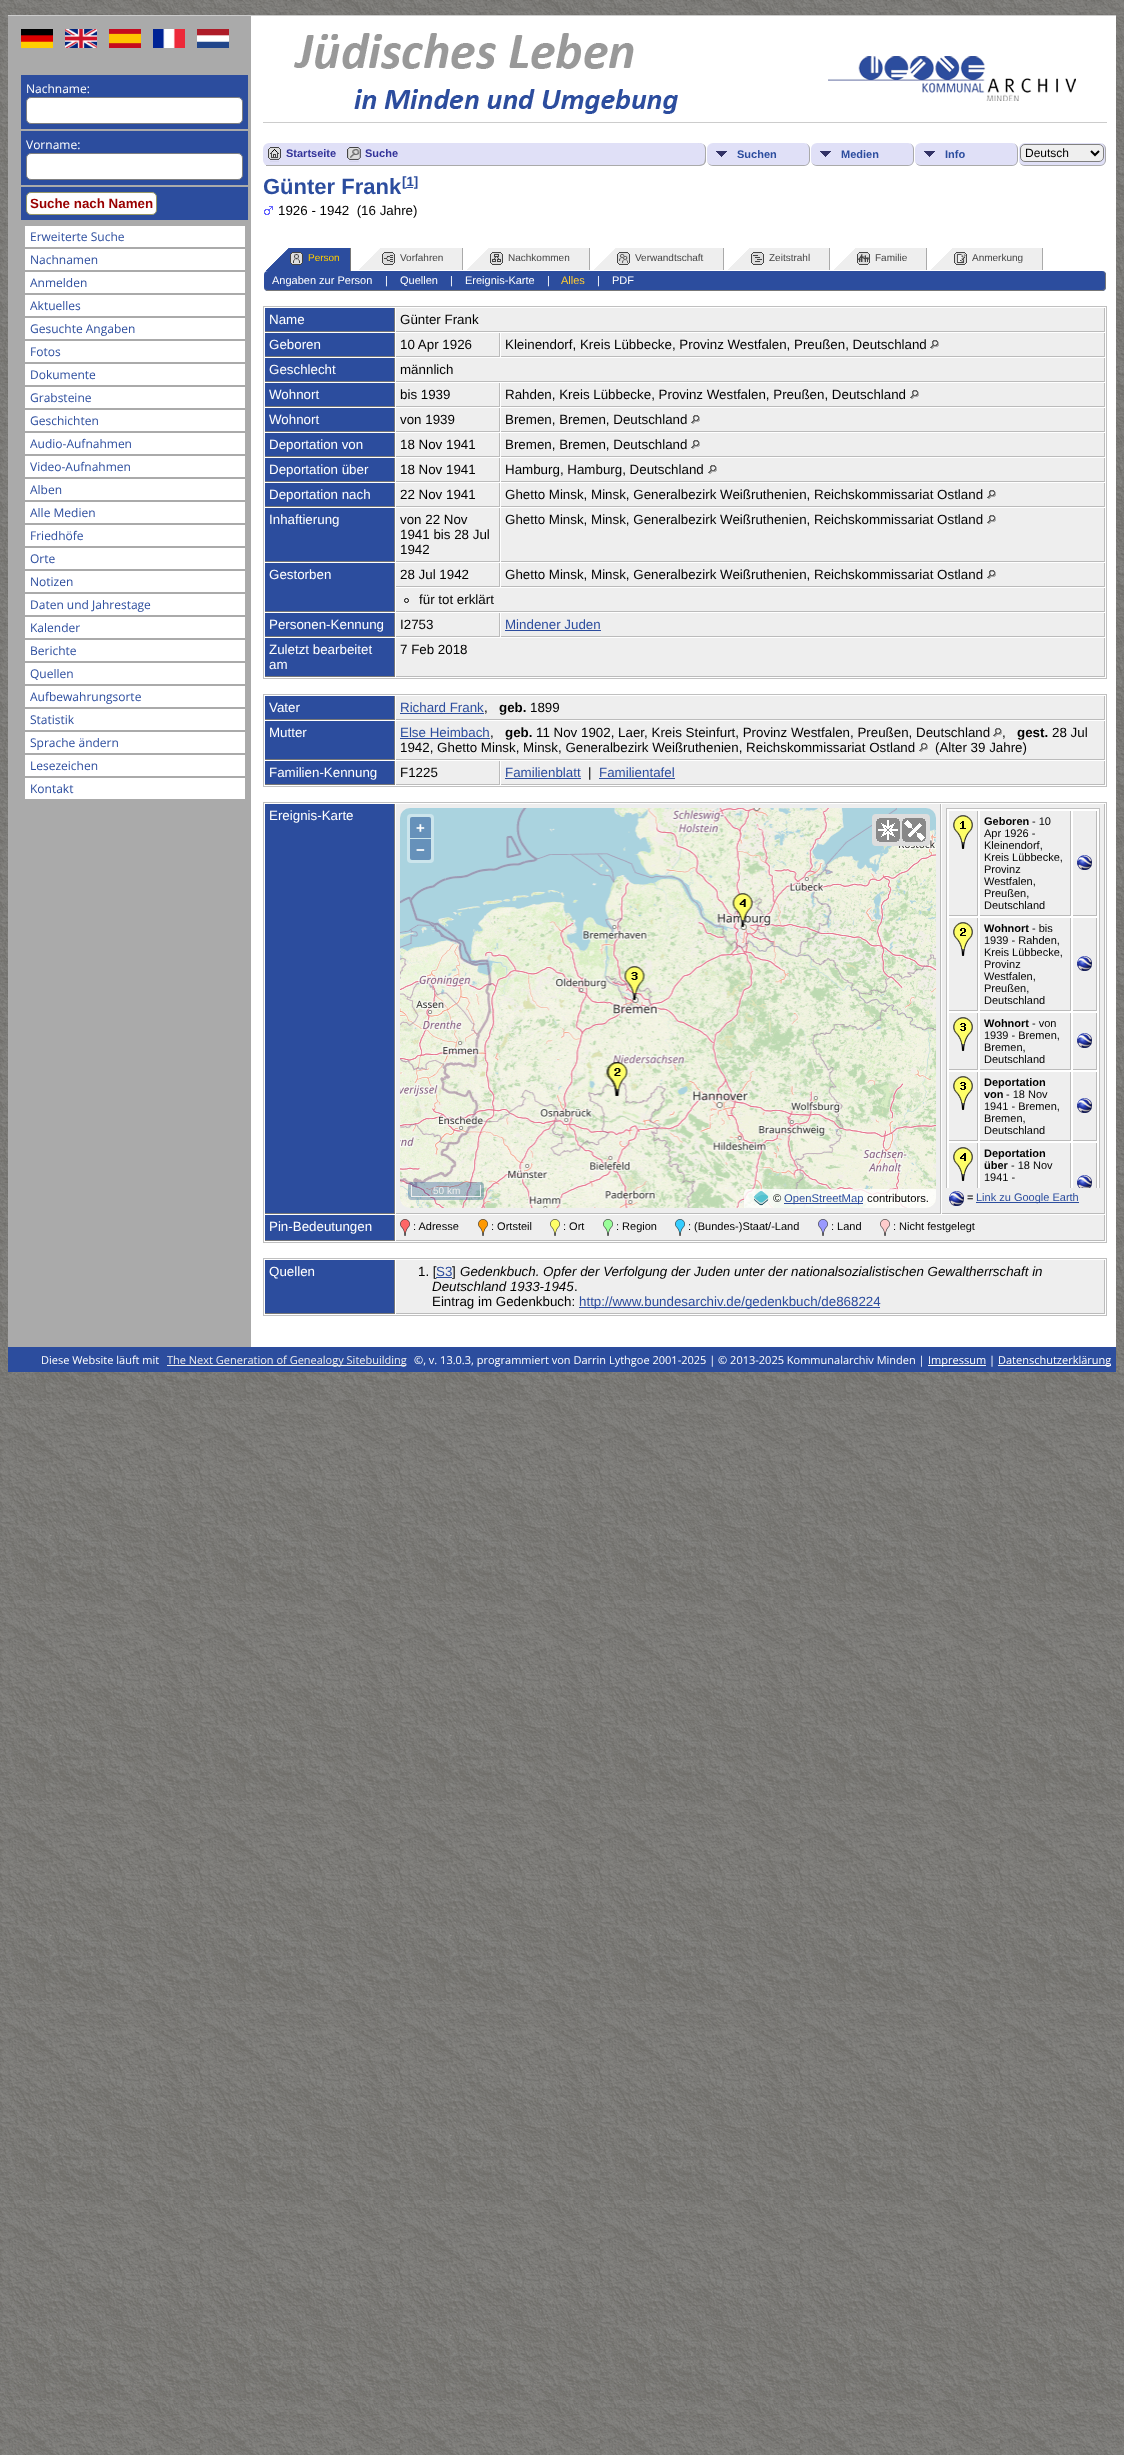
async function draw(canvas) {
  canvas.width = 1124
  canvas.height = 2455
  const ctx = canvas.getContext('2d')
  ctx.miterLimit = 4
  ctx.fontKerning = 'normal'
  async function loadImage(src) {
    const img = new Image()
    img.src = src
    await img.decode()
    return img
  }

  ctx.fillStyle = '#fff'
  ctx.fillRect(0, 0, 1124, 2455)
  ctx.drawImage(await loadImage('image0.png'), 0, 0, 1124, 2455)
  ctx.fillRect(251, 16, 865, 1331)
  ctx.fillStyle = '#ccc'
  ctx.fillRect(8, 15, 1108, 1)
  ctx.fillStyle = '#aaa'
  ctx.fillRect(8, 16, 243, 1331)
  ctx.drawImage(await loadImage('image1.png'), 21, 29, 32, 19)
  ctx.drawImage(await loadImage('image2.png'), 65, 29, 32, 19)
  ctx.drawImage(await loadImage('image3.png'), 109, 29, 32, 19)
  ctx.drawImage(await loadImage('image4.png'), 153, 29, 32, 19)
  ctx.drawImage(await loadImage('image5.png'), 197, 29, 32, 19)
  ctx.fillStyle = '#2c4d9e'
  ctx.fillRect(21, 75, 227, 54)
  ctx.font = '12px Open Sans'
  ctx.fillStyle = '#fff'
  ctx.fillText('Nachname:', 26, 93)
  ctx.beginPath()
  ctx.roundRect(26.5, 97.5, 216, 26, 4.5)
  ctx.fill()
  ctx.strokeStyle = '#808080'
  ctx.stroke()
  ctx.fillStyle = '#2c4d9e'
  ctx.fillRect(21, 131, 227, 54)
  ctx.fillStyle = '#fff'
  ctx.fillText('Vorname:', 26, 149)
  ctx.beginPath()
  ctx.roundRect(26.5, 153.5, 216, 26, 4.5)
  ctx.fill()
  ctx.stroke()
  ctx.fillStyle = '#2c4d9e'
  ctx.fillRect(21, 187, 227, 33)
  ctx.fillStyle = '#fff'
  ctx.beginPath()
  ctx.roundRect(26.5, 192.5, 130, 22, 4.5)
  ctx.fill()
  ctx.strokeStyle = '#996'
  ctx.stroke()
  ctx.font = 'bold 13.35px Liberation Sans'
  ctx.fillStyle = '#900'
  ctx.fillText('Suche nach Namen', 30, 208)
  ctx.fillStyle = '#fff'
  ctx.fillRect(25, 226, 220, 21)
  ctx.font = '12px Open Sans'
  ctx.fillStyle = '#2c4d9e'
  ctx.fillText('Erweiterte Suche', 30, 241)
  ctx.fillStyle = '#fff'
  ctx.fillRect(25, 249, 220, 21)
  ctx.fillStyle = '#2c4d9e'
  ctx.fillText('Nachnamen', 30, 264)
  ctx.fillStyle = '#fff'
  ctx.fillRect(25, 272, 220, 21)
  ctx.fillStyle = '#2c4d9e'
  ctx.fillText('Anmelden', 30, 287)
  ctx.fillStyle = '#fff'
  ctx.fillRect(25, 295, 220, 21)
  ctx.fillStyle = '#2c4d9e'
  ctx.fillText('Aktuelles', 30, 310)
  ctx.fillStyle = '#fff'
  ctx.fillRect(25, 318, 220, 21)
  ctx.fillStyle = '#2c4d9e'
  ctx.fillText('Gesuchte Angaben', 30, 333)
  ctx.fillStyle = '#fff'
  ctx.fillRect(25, 341, 220, 21)
  ctx.fillStyle = '#2c4d9e'
  ctx.fillText('Fotos', 30, 356)
  ctx.fillStyle = '#fff'
  ctx.fillRect(25, 364, 220, 21)
  ctx.fillStyle = '#2c4d9e'
  ctx.fillText('Dokumente', 30, 379)
  ctx.fillStyle = '#fff'
  ctx.fillRect(25, 387, 220, 21)
  ctx.fillStyle = '#2c4d9e'
  ctx.fillText('Grabsteine', 30, 402)
  ctx.fillStyle = '#fff'
  ctx.fillRect(25, 410, 220, 21)
  ctx.fillStyle = '#2c4d9e'
  ctx.fillText('Geschichten', 30, 425)
  ctx.fillStyle = '#fff'
  ctx.fillRect(25, 433, 220, 21)
  ctx.fillStyle = '#2c4d9e'
  ctx.fillText('Audio-Aufnahmen', 30, 448)
  ctx.fillStyle = '#fff'
  ctx.fillRect(25, 456, 220, 21)
  ctx.fillStyle = '#2c4d9e'
  ctx.fillText('Video-Aufnahmen', 30, 471)
  ctx.fillStyle = '#fff'
  ctx.fillRect(25, 479, 220, 21)
  ctx.fillStyle = '#2c4d9e'
  ctx.fillText('Alben', 30, 494)
  ctx.fillStyle = '#fff'
  ctx.fillRect(25, 502, 220, 21)
  ctx.fillStyle = '#2c4d9e'
  ctx.fillText('Alle Medien', 30, 517)
  ctx.fillStyle = '#fff'
  ctx.fillRect(25, 525, 220, 21)
  ctx.fillStyle = '#2c4d9e'
  ctx.fillText('Friedhöfe', 30, 540)
  ctx.fillStyle = '#fff'
  ctx.fillRect(25, 548, 220, 21)
  ctx.fillStyle = '#2c4d9e'
  ctx.fillText('Orte', 30, 563)
  ctx.fillStyle = '#fff'
  ctx.fillRect(25, 571, 220, 21)
  ctx.fillStyle = '#2c4d9e'
  ctx.fillText('Notizen', 30, 586)
  ctx.fillStyle = '#fff'
  ctx.fillRect(25, 594, 220, 21)
  ctx.fillStyle = '#2c4d9e'
  ctx.fillText('Daten und Jahrestage', 30, 609)
  ctx.fillStyle = '#fff'
  ctx.fillRect(25, 617, 220, 21)
  ctx.fillStyle = '#2c4d9e'
  ctx.fillText('Kalender', 30, 632)
  ctx.fillStyle = '#fff'
  ctx.fillRect(25, 640, 220, 21)
  ctx.fillStyle = '#2c4d9e'
  ctx.fillText('Berichte', 30, 655)
  ctx.fillStyle = '#fff'
  ctx.fillRect(25, 663, 220, 21)
  ctx.fillStyle = '#2c4d9e'
  ctx.fillText('Quellen', 30, 678)
  ctx.fillStyle = '#fff'
  ctx.fillRect(25, 686, 220, 21)
  ctx.fillStyle = '#2c4d9e'
  ctx.fillText('Aufbewahrungsorte', 30, 701)
  ctx.fillStyle = '#fff'
  ctx.fillRect(25, 709, 220, 21)
  ctx.fillStyle = '#2c4d9e'
  ctx.fillText('Statistik', 30, 724)
  ctx.fillStyle = '#fff'
  ctx.fillRect(25, 732, 220, 21)
  ctx.fillStyle = '#2c4d9e'
  ctx.fillText('Sprache ändern', 30, 747)
  ctx.fillStyle = '#fff'
  ctx.fillRect(25, 755, 220, 21)
  ctx.fillStyle = '#2c4d9e'
  ctx.fillText('Lesezeichen', 30, 770)
  ctx.fillStyle = '#fff'
  ctx.fillRect(25, 778, 220, 21)
  ctx.fillStyle = '#2c4d9e'
  ctx.fillText('Kontakt', 30, 793)
  ctx.drawImage(await loadImage('image6.png'), 294, 33, 384, 81)
  ctx.drawImage(await loadImage('image7.png'), 828, 56, 248, 45)
  ctx.fillStyle = '#ccc'
  ctx.fillRect(263, 122, 844, 1)
  ctx.fillStyle = '#e0e0f7'
  ctx.beginPath()
  ctx.roundRect(263, 143, 844, 23, 6)
  ctx.fill()
  ctx.fillStyle = '#aaa'
  ctx.fillRect(266, 165, 429, 1)
  ctx.drawImage(await loadImage('image8.png'), 268, 147, 13, 15)
  ctx.font = 'bold 11px Liberation Sans'
  ctx.fillStyle = '#339'
  ctx.fillText('Startseite', 286, 157)
  ctx.drawImage(await loadImage('image9.png'), 347, 147, 14, 15)
  ctx.fillText('Suche', 365, 157)
  ctx.fillStyle = '#fff'
  ctx.fillRect(700, 143, 407, 23)
  ctx.fillStyle = '#e0e0f7'
  ctx.beginPath()
  ctx.roundRect(695, 143, 11, 23, [0, 6, 6, 0])
  ctx.fill()
  ctx.fillStyle = '#aaa'
  ctx.beginPath()
  ctx.moveTo(695, 143)
  ctx.bezierCurveTo(699, 143, 705, 142.5, 706, 148)
  ctx.lineTo(706, 161)
  ctx.bezierCurveTo(705, 166.5, 699, 166, 695, 166)
  ctx.closePath()
  ctx.moveTo(695, 143)
  ctx.lineTo(701, 143)
  ctx.bezierCurveTo(706, 144.5, 705, 151, 705, 154.5)
  ctx.bezierCurveTo(705, 164.5, 704.5, 165, 695, 165)
  ctx.closePath()
  ctx.fill('evenodd')
  ctx.fillStyle = '#e0e0f7'
  ctx.beginPath()
  ctx.roundRect(707, 143, 103, 23, 6)
  ctx.fill()
  ctx.drawImage(await loadImage('image10.png'), 716, 151, 11, 6)
  ctx.fillStyle = '#aaa'
  ctx.beginPath()
  ctx.moveTo(713, 143)
  ctx.lineTo(804, 143)
  ctx.bezierCurveTo(807, 143, 810, 146, 810, 149)
  ctx.lineTo(810, 160)
  ctx.bezierCurveTo(810, 163, 807, 166, 804, 166)
  ctx.lineTo(713, 166)
  ctx.bezierCurveTo(710, 166, 707, 163, 707, 160)
  ctx.lineTo(707, 149)
  ctx.bezierCurveTo(707, 146, 710, 143, 713, 143)
  ctx.closePath()
  ctx.moveTo(713, 143)
  ctx.lineTo(804, 143)
  ctx.bezierCurveTo(807, 143, 809, 146, 809, 149)
  ctx.lineTo(809, 160)
  ctx.bezierCurveTo(809, 163, 807, 165, 804, 165)
  ctx.lineTo(713, 165)
  ctx.bezierCurveTo(710, 165, 707, 163, 707, 160)
  ctx.lineTo(707, 149)
  ctx.bezierCurveTo(707, 146, 710, 143, 713, 143)
  ctx.closePath()
  ctx.fill('evenodd')
  ctx.fillStyle = '#2c4d9e'
  ctx.fillText('Suchen', 737, 158)
  ctx.fillStyle = '#e0e0f7'
  ctx.beginPath()
  ctx.roundRect(811, 143, 103, 23, 6)
  ctx.fill()
  ctx.drawImage(await loadImage('image10.png'), 820, 151, 11, 6)
  ctx.fillStyle = '#aaa'
  ctx.beginPath()
  ctx.moveTo(817, 143)
  ctx.lineTo(908, 143)
  ctx.bezierCurveTo(911, 143, 914, 146, 914, 149)
  ctx.lineTo(914, 160)
  ctx.bezierCurveTo(914, 163, 911, 166, 908, 166)
  ctx.lineTo(817, 166)
  ctx.bezierCurveTo(814, 166, 811, 163, 811, 160)
  ctx.lineTo(811, 149)
  ctx.bezierCurveTo(811, 146, 814, 143, 817, 143)
  ctx.closePath()
  ctx.moveTo(817, 143)
  ctx.lineTo(908, 143)
  ctx.bezierCurveTo(911, 143, 913, 146, 913, 149)
  ctx.lineTo(913, 160)
  ctx.bezierCurveTo(913, 163, 911, 165, 908, 165)
  ctx.lineTo(817, 165)
  ctx.bezierCurveTo(814, 165, 811, 163, 811, 160)
  ctx.lineTo(811, 149)
  ctx.bezierCurveTo(811, 146, 814, 143, 817, 143)
  ctx.closePath()
  ctx.fill('evenodd')
  ctx.fillStyle = '#2c4d9e'
  ctx.fillText('Medien', 841, 158)
  ctx.fillStyle = '#e0e0f7'
  ctx.beginPath()
  ctx.roundRect(915, 143, 103, 23, 6)
  ctx.fill()
  ctx.drawImage(await loadImage('image10.png'), 924, 151, 11, 6)
  ctx.fillStyle = '#aaa'
  ctx.beginPath()
  ctx.moveTo(921, 143)
  ctx.lineTo(1012, 143)
  ctx.bezierCurveTo(1015, 143, 1018, 146, 1018, 149)
  ctx.lineTo(1018, 160)
  ctx.bezierCurveTo(1018, 163, 1015, 166, 1012, 166)
  ctx.lineTo(921, 166)
  ctx.bezierCurveTo(918, 166, 915, 163, 915, 160)
  ctx.lineTo(915, 149)
  ctx.bezierCurveTo(915, 146, 918, 143, 921, 143)
  ctx.closePath()
  ctx.moveTo(921, 143)
  ctx.lineTo(1012, 143)
  ctx.bezierCurveTo(1015, 143, 1017, 146, 1017, 149)
  ctx.lineTo(1017, 160)
  ctx.bezierCurveTo(1017, 163, 1015, 165, 1012, 165)
  ctx.lineTo(921, 165)
  ctx.bezierCurveTo(918, 165, 915, 163, 915, 160)
  ctx.lineTo(915, 149)
  ctx.bezierCurveTo(915, 146, 918, 143, 921, 143)
  ctx.closePath()
  ctx.fill('evenodd')
  ctx.fillStyle = '#2c4d9e'
  ctx.fillText('Info', 945, 158)
  ctx.fillStyle = '#e0e0f7'
  ctx.beginPath()
  ctx.roundRect(1019, 143, 87, 23, 6)
  ctx.fill()
  ctx.fillStyle = '#aaa'
  ctx.beginPath()
  ctx.moveTo(1025, 143)
  ctx.lineTo(1100, 143)
  ctx.bezierCurveTo(1103, 143, 1106, 146, 1106, 149)
  ctx.lineTo(1106, 160)
  ctx.bezierCurveTo(1106, 163, 1103, 166, 1100, 166)
  ctx.lineTo(1025, 166)
  ctx.bezierCurveTo(1022, 166, 1019, 163, 1019, 160)
  ctx.lineTo(1019, 149)
  ctx.bezierCurveTo(1019, 146, 1022, 143, 1025, 143)
  ctx.closePath()
  ctx.moveTo(1025, 143)
  ctx.lineTo(1100, 143)
  ctx.bezierCurveTo(1103, 143, 1105, 146, 1105, 149)
  ctx.lineTo(1105, 160)
  ctx.bezierCurveTo(1105, 163, 1103, 165, 1100, 165)
  ctx.lineTo(1025, 165)
  ctx.bezierCurveTo(1022, 165, 1019, 163, 1019, 160)
  ctx.lineTo(1019, 149)
  ctx.bezierCurveTo(1019, 146, 1022, 143, 1025, 143)
  ctx.closePath()
  ctx.fill('evenodd')
  ctx.fillStyle = '#efefef'
  ctx.beginPath()
  ctx.roundRect(1020.5, 144.5, 83, 17, 4.5)
  ctx.fill()
  ctx.strokeStyle = '#808080'
  ctx.stroke()
  ctx.beginPath()
  ctx.moveTo(1091, 151)
  ctx.lineTo(1095, 155)
  ctx.lineTo(1099, 151)
  ctx.strokeStyle = '#000'
  ctx.lineWidth = 2
  ctx.stroke()
  ctx.font = '12px Liberation Sans'
  ctx.fillStyle = '#000'
  ctx.fillText('Deutsch', 1025, 157)
  ctx.font = 'bold 22px Liberation Sans'
  ctx.fillStyle = '#2c4d9e'
  ctx.fillText('Günter Frank', 263, 194)
  ctx.font = 'bold 13.35px Liberation Sans'
  ctx.fillText('[1]', 402, 186)
  ctx.fillRect(406, 187, 7, 1)
  ctx.drawImage(await loadImage('image11.png'), 264, 206, 9, 9)
  ctx.font = '13.35px Liberation Sans'
  ctx.fillStyle = '#000'
  ctx.fillText('1926 - 1942  (16 Jahre)', 278, 215)
  ctx.drawImage(await loadImage('image12.png'), 266, 248, 84, 23)
  ctx.fillStyle = '#777'
  ctx.fillRect(350, 248, 1, 23)
  ctx.drawImage(await loadImage('image13.png'), 290, 252, 13, 13)
  ctx.font = '10px Liberation Sans'
  ctx.fillStyle = '#fc0'
  ctx.fillText('Person', 308, 261)
  ctx.drawImage(await loadImage('image14.png'), 359, 248, 103, 22)
  ctx.fillStyle = '#aaa'
  ctx.fillRect(462, 248, 1, 22)
  ctx.drawImage(await loadImage('image15.png'), 382, 252, 13, 13)
  ctx.fillStyle = '#444'
  ctx.fillText('Vorfahren', 400, 261)
  ctx.drawImage(await loadImage('image16.png'), 467, 248, 122, 22)
  ctx.fillStyle = '#aaa'
  ctx.fillRect(589, 248, 1, 22)
  ctx.drawImage(await loadImage('image17.png'), 490, 252, 13, 13)
  ctx.fillStyle = '#444'
  ctx.fillText('Nachkommen', 508, 261)
  ctx.drawImage(await loadImage('image18.png'), 594, 248, 129, 22)
  ctx.fillStyle = '#aaa'
  ctx.fillRect(723, 248, 1, 22)
  ctx.drawImage(await loadImage('image19.png'), 617, 252, 13, 13)
  ctx.fillStyle = '#444'
  ctx.fillText('Verwandtschaft', 635, 261)
  ctx.drawImage(await loadImage('image20.png'), 728, 248, 101, 22)
  ctx.fillStyle = '#aaa'
  ctx.fillRect(829, 248, 1, 22)
  ctx.drawImage(await loadImage('image21.png'), 751, 252, 13, 13)
  ctx.fillStyle = '#444'
  ctx.fillText('Zeitstrahl', 769, 261)
  ctx.drawImage(await loadImage('image22.png'), 834, 248, 92, 22)
  ctx.fillStyle = '#aaa'
  ctx.fillRect(926, 248, 1, 22)
  ctx.drawImage(await loadImage('image23.png'), 857, 252, 13, 13)
  ctx.fillStyle = '#444'
  ctx.fillText('Familie', 875, 261)
  ctx.drawImage(await loadImage('image24.png'), 931, 248, 111, 22)
  ctx.fillStyle = '#aaa'
  ctx.fillRect(1042, 248, 1, 22)
  ctx.drawImage(await loadImage('image25.png'), 954, 252, 13, 13)
  ctx.fillStyle = '#444'
  ctx.fillText('Anmerkung', 972, 261)
  ctx.fillStyle = '#2c4d9e'
  ctx.beginPath()
  ctx.roundRect(264, 271, 842, 20, 4)
  ctx.fill()
  ctx.fillStyle = '#777'
  ctx.beginPath()
  ctx.moveTo(268, 271)
  ctx.lineTo(1102, 271)
  ctx.bezierCurveTo(1104, 271, 1106, 273, 1106, 275)
  ctx.lineTo(1106, 287)
  ctx.bezierCurveTo(1106, 289, 1104, 291, 1102, 291)
  ctx.lineTo(268, 291)
  ctx.bezierCurveTo(266, 291, 264, 289, 264, 287)
  ctx.lineTo(264, 275)
  ctx.bezierCurveTo(264, 273, 266, 271, 268, 271)
  ctx.closePath()
  ctx.moveTo(268, 271)
  ctx.lineTo(1102, 271)
  ctx.bezierCurveTo(1104, 271, 1105, 273, 1105, 275)
  ctx.lineTo(1105, 287)
  ctx.bezierCurveTo(1105, 289, 1104, 290, 1102, 290)
  ctx.lineTo(268, 290)
  ctx.bezierCurveTo(266, 290, 264, 289, 264, 287)
  ctx.lineTo(264, 275)
  ctx.bezierCurveTo(264, 273, 266, 271, 268, 271)
  ctx.closePath()
  ctx.fill('evenodd')
  ctx.font = '11px Liberation Sans'
  ctx.fillStyle = '#fff'
  ctx.fillText('Angaben zur Person', 272, 284)
  ctx.fillText('|', 385, 284)
  ctx.fillText('Quellen', 400, 284)
  ctx.fillText('|', 450, 284)
  ctx.fillText('Ereignis-Karte', 465, 284)
  ctx.fillText('|', 547, 284)
  ctx.fillStyle = '#fc3'
  ctx.fillText('Alles', 561, 284)
  ctx.fillStyle = '#fff'
  ctx.fillText('|', 597, 284)
  ctx.fillText('PDF', 612, 284)
  ctx.strokeStyle = '#c0c0c0'
  ctx.lineWidth = 1
  ctx.strokeRect(263.5, 306.5, 843, 372)
  ctx.fillStyle = '#2c4d9e'
  ctx.fillRect(265, 308, 129, 23)
  ctx.fillStyle = '#777'
  ctx.fillRect(394, 308, 1, 24)
  ctx.fillRect(265, 331, 130, 1)
  ctx.font = '13.35px Liberation Sans'
  ctx.fillStyle = '#fff'
  ctx.fillText('Name', 269, 324)
  ctx.fillStyle = '#eee'
  ctx.fillRect(396, 308, 708, 23)
  ctx.fillStyle = '#bbb'
  ctx.fillRect(1104, 308, 1, 24)
  ctx.fillRect(396, 331, 709, 1)
  ctx.fillStyle = '#000'
  ctx.fillText('Günter Frank', 400, 324)
  ctx.fillStyle = '#2c4d9e'
  ctx.fillRect(265, 333, 129, 23)
  ctx.fillStyle = '#777'
  ctx.fillRect(394, 333, 1, 24)
  ctx.fillRect(265, 356, 130, 1)
  ctx.fillStyle = '#fff'
  ctx.fillText('Geboren', 269, 349)
  ctx.fillStyle = '#eee'
  ctx.fillRect(396, 333, 103, 23)
  ctx.fillStyle = '#bbb'
  ctx.fillRect(499, 333, 1, 24)
  ctx.fillRect(396, 356, 104, 1)
  ctx.fillStyle = '#000'
  ctx.fillText('10 Apr 1926', 400, 349)
  ctx.fillStyle = '#eee'
  ctx.fillRect(501, 333, 603, 23)
  ctx.fillStyle = '#bbb'
  ctx.fillRect(1104, 333, 1, 24)
  ctx.fillRect(501, 356, 604, 1)
  ctx.fillStyle = '#000'
  ctx.fillText('Kleinendorf, Kreis Lübbecke, Provinz Westfalen, Preußen, Deutschland', 505, 349)
  ctx.drawImage(await loadImage('image26.png'), 930, 340, 9, 9)
  ctx.fillStyle = '#2c4d9e'
  ctx.fillRect(265, 358, 129, 23)
  ctx.fillStyle = '#777'
  ctx.fillRect(394, 358, 1, 24)
  ctx.fillRect(265, 381, 130, 1)
  ctx.fillStyle = '#fff'
  ctx.fillText('Geschlecht', 269, 374)
  ctx.fillStyle = '#eee'
  ctx.fillRect(396, 358, 708, 23)
  ctx.fillStyle = '#bbb'
  ctx.fillRect(1104, 358, 1, 24)
  ctx.fillRect(396, 381, 709, 1)
  ctx.fillStyle = '#000'
  ctx.fillText('männlich', 400, 374)
  ctx.fillStyle = '#2c4d9e'
  ctx.fillRect(265, 383, 129, 23)
  ctx.fillStyle = '#777'
  ctx.fillRect(394, 383, 1, 24)
  ctx.fillRect(265, 406, 130, 1)
  ctx.fillStyle = '#fff'
  ctx.fillText('Wohnort', 269, 399)
  ctx.fillStyle = '#eee'
  ctx.fillRect(396, 383, 103, 23)
  ctx.fillStyle = '#bbb'
  ctx.fillRect(499, 383, 1, 24)
  ctx.fillRect(396, 406, 104, 1)
  ctx.fillStyle = '#000'
  ctx.fillText('bis 1939', 400, 399)
  ctx.fillStyle = '#eee'
  ctx.fillRect(501, 383, 603, 23)
  ctx.fillStyle = '#bbb'
  ctx.fillRect(1104, 383, 1, 24)
  ctx.fillRect(501, 406, 604, 1)
  ctx.fillStyle = '#000'
  ctx.fillText('Rahden, Kreis Lübbecke, Provinz Westfalen, Preußen, Deutschland', 505, 399)
  ctx.drawImage(await loadImage('image26.png'), 910, 390, 9, 9)
  ctx.fillStyle = '#2c4d9e'
  ctx.fillRect(265, 408, 129, 23)
  ctx.fillStyle = '#777'
  ctx.fillRect(394, 408, 1, 24)
  ctx.fillRect(265, 431, 130, 1)
  ctx.fillStyle = '#fff'
  ctx.fillText('Wohnort', 269, 424)
  ctx.fillStyle = '#eee'
  ctx.fillRect(396, 408, 103, 23)
  ctx.fillStyle = '#bbb'
  ctx.fillRect(499, 408, 1, 24)
  ctx.fillRect(396, 431, 104, 1)
  ctx.fillStyle = '#000'
  ctx.fillText('von 1939', 400, 424)
  ctx.fillStyle = '#eee'
  ctx.fillRect(501, 408, 603, 23)
  ctx.fillStyle = '#bbb'
  ctx.fillRect(1104, 408, 1, 24)
  ctx.fillRect(501, 431, 604, 1)
  ctx.fillStyle = '#000'
  ctx.fillText('Bremen, Bremen, Deutschland', 505, 424)
  ctx.drawImage(await loadImage('image26.png'), 691, 415, 9, 9)
  ctx.fillStyle = '#2c4d9e'
  ctx.fillRect(265, 433, 129, 23)
  ctx.fillStyle = '#777'
  ctx.fillRect(394, 433, 1, 24)
  ctx.fillRect(265, 456, 130, 1)
  ctx.fillStyle = '#fff'
  ctx.fillText('Deportation von', 269, 449)
  ctx.fillStyle = '#eee'
  ctx.fillRect(396, 433, 103, 23)
  ctx.fillStyle = '#bbb'
  ctx.fillRect(499, 433, 1, 24)
  ctx.fillRect(396, 456, 104, 1)
  ctx.fillStyle = '#000'
  ctx.fillText('18 Nov 1941', 400, 449)
  ctx.fillStyle = '#eee'
  ctx.fillRect(501, 433, 603, 23)
  ctx.fillStyle = '#bbb'
  ctx.fillRect(1104, 433, 1, 24)
  ctx.fillRect(501, 456, 604, 1)
  ctx.fillStyle = '#000'
  ctx.fillText('Bremen, Bremen, Deutschland', 505, 449)
  ctx.drawImage(await loadImage('image26.png'), 691, 440, 9, 9)
  ctx.fillStyle = '#2c4d9e'
  ctx.fillRect(265, 458, 129, 23)
  ctx.fillStyle = '#777'
  ctx.fillRect(394, 458, 1, 24)
  ctx.fillRect(265, 481, 130, 1)
  ctx.fillStyle = '#fff'
  ctx.fillText('Deportation über', 269, 474)
  ctx.fillStyle = '#eee'
  ctx.fillRect(396, 458, 103, 23)
  ctx.fillStyle = '#bbb'
  ctx.fillRect(499, 458, 1, 24)
  ctx.fillRect(396, 481, 104, 1)
  ctx.fillStyle = '#000'
  ctx.fillText('18 Nov 1941', 400, 474)
  ctx.fillStyle = '#eee'
  ctx.fillRect(501, 458, 603, 23)
  ctx.fillStyle = '#bbb'
  ctx.fillRect(1104, 458, 1, 24)
  ctx.fillRect(501, 481, 604, 1)
  ctx.fillStyle = '#000'
  ctx.fillText('Hamburg, Hamburg, Deutschland', 505, 474)
  ctx.drawImage(await loadImage('image26.png'), 708, 465, 9, 9)
  ctx.fillStyle = '#2c4d9e'
  ctx.fillRect(265, 483, 129, 23)
  ctx.fillStyle = '#777'
  ctx.fillRect(394, 483, 1, 24)
  ctx.fillRect(265, 506, 130, 1)
  ctx.fillStyle = '#fff'
  ctx.fillText('Deportation nach', 269, 499)
  ctx.fillStyle = '#eee'
  ctx.fillRect(396, 483, 103, 23)
  ctx.fillStyle = '#bbb'
  ctx.fillRect(499, 483, 1, 24)
  ctx.fillRect(396, 506, 104, 1)
  ctx.fillStyle = '#000'
  ctx.fillText('22 Nov 1941', 400, 499)
  ctx.fillStyle = '#eee'
  ctx.fillRect(501, 483, 603, 23)
  ctx.fillStyle = '#bbb'
  ctx.fillRect(1104, 483, 1, 24)
  ctx.fillRect(501, 506, 604, 1)
  ctx.fillStyle = '#000'
  ctx.fillText('Ghetto Minsk, Minsk, Generalbezirk Weißruthenien, Reichskommissariat Ostland', 505, 499)
  ctx.drawImage(await loadImage('image26.png'), 987, 490, 9, 9)
  ctx.fillStyle = '#2c4d9e'
  ctx.fillRect(265, 508, 129, 53)
  ctx.fillStyle = '#777'
  ctx.fillRect(394, 508, 1, 54)
  ctx.fillRect(265, 561, 130, 1)
  ctx.fillStyle = '#fff'
  ctx.fillText('Inhaftierung', 269, 524)
  ctx.fillStyle = '#eee'
  ctx.fillRect(396, 508, 103, 53)
  ctx.fillStyle = '#bbb'
  ctx.fillRect(499, 508, 1, 54)
  ctx.fillRect(396, 561, 104, 1)
  ctx.fillStyle = '#000'
  ctx.fillText('von 22 Nov', 400, 524)
  ctx.fillText('1941 bis 28 Jul', 400, 539)
  ctx.fillText('1942', 400, 554)
  ctx.fillStyle = '#eee'
  ctx.fillRect(501, 508, 603, 53)
  ctx.fillStyle = '#bbb'
  ctx.fillRect(1104, 508, 1, 54)
  ctx.fillRect(501, 561, 604, 1)
  ctx.fillStyle = '#000'
  ctx.fillText('Ghetto Minsk, Minsk, Generalbezirk Weißruthenien, Reichskommissariat Ostland', 505, 524)
  ctx.drawImage(await loadImage('image26.png'), 987, 515, 9, 9)
  ctx.fillStyle = '#2c4d9e'
  ctx.fillRect(265, 563, 129, 48)
  ctx.fillStyle = '#777'
  ctx.fillRect(394, 563, 1, 49)
  ctx.fillRect(265, 611, 130, 1)
  ctx.fillStyle = '#fff'
  ctx.fillText('Gestorben', 269, 579)
  ctx.fillStyle = '#eee'
  ctx.fillRect(396, 563, 103, 23)
  ctx.fillStyle = '#bbb'
  ctx.fillRect(499, 563, 1, 24)
  ctx.fillRect(396, 586, 104, 1)
  ctx.fillStyle = '#000'
  ctx.fillText('28 Jul 1942', 400, 579)
  ctx.fillStyle = '#eee'
  ctx.fillRect(501, 563, 603, 23)
  ctx.fillStyle = '#bbb'
  ctx.fillRect(1104, 563, 1, 24)
  ctx.fillRect(501, 586, 604, 1)
  ctx.fillStyle = '#000'
  ctx.fillText('Ghetto Minsk, Minsk, Generalbezirk Weißruthenien, Reichskommissariat Ostland', 505, 579)
  ctx.drawImage(await loadImage('image26.png'), 987, 570, 9, 9)
  ctx.fillStyle = '#eee'
  ctx.fillRect(396, 588, 708, 23)
  ctx.fillStyle = '#bbb'
  ctx.fillRect(1104, 588, 1, 24)
  ctx.fillRect(396, 611, 709, 1)
  ctx.beginPath()
  ctx.arc(406.5, 600.5, 2, 0, 2 * Math.PI)
  ctx.strokeStyle = '#000'
  ctx.stroke()
  ctx.fillStyle = '#000'
  ctx.fillText('für tot erklärt', 419, 604)
  ctx.fillStyle = '#2c4d9e'
  ctx.fillRect(265, 613, 129, 23)
  ctx.fillStyle = '#777'
  ctx.fillRect(394, 613, 1, 24)
  ctx.fillRect(265, 636, 130, 1)
  ctx.fillStyle = '#fff'
  ctx.fillText('Personen-Kennung', 269, 629)
  ctx.fillStyle = '#eee'
  ctx.fillRect(396, 613, 103, 23)
  ctx.fillStyle = '#bbb'
  ctx.fillRect(499, 613, 1, 24)
  ctx.fillRect(396, 636, 104, 1)
  ctx.fillStyle = '#000'
  ctx.fillText('I2753', 400, 629)
  ctx.fillStyle = '#eee'
  ctx.fillRect(501, 613, 603, 23)
  ctx.fillStyle = '#bbb'
  ctx.fillRect(1104, 613, 1, 24)
  ctx.fillRect(501, 636, 604, 1)
  ctx.fillStyle = '#2c4d9e'
  ctx.fillText('Mindener Juden', 505, 629)
  ctx.fillRect(505, 630, 96, 1)
  ctx.fillRect(265, 638, 129, 38)
  ctx.fillStyle = '#777'
  ctx.fillRect(394, 638, 1, 39)
  ctx.fillRect(265, 676, 130, 1)
  ctx.fillStyle = '#fff'
  ctx.fillText('Zuletzt bearbeitet', 269, 654)
  ctx.fillText('am', 269, 669)
  ctx.fillStyle = '#eee'
  ctx.fillRect(396, 638, 708, 38)
  ctx.fillStyle = '#bbb'
  ctx.fillRect(1104, 638, 1, 39)
  ctx.fillRect(396, 676, 709, 1)
  ctx.fillStyle = '#000'
  ctx.fillText('7 Feb 2018', 400, 654)
  ctx.strokeStyle = '#c0c0c0'
  ctx.strokeRect(263.5, 694.5, 843, 92)
  ctx.fillStyle = '#2c4d9e'
  ctx.fillRect(265, 696, 129, 23)
  ctx.fillStyle = '#777'
  ctx.fillRect(394, 696, 1, 24)
  ctx.fillRect(265, 719, 130, 1)
  ctx.fillStyle = '#fff'
  ctx.fillText('Vater', 269, 712)
  ctx.fillStyle = '#eee'
  ctx.fillRect(396, 696, 708, 23)
  ctx.fillStyle = '#bbb'
  ctx.fillRect(1104, 696, 1, 24)
  ctx.fillRect(396, 719, 709, 1)
  ctx.fillStyle = '#2c4d9e'
  ctx.fillText('Richard Frank', 400, 712)
  ctx.fillRect(400, 713, 84, 1)
  ctx.fillStyle = '#000'
  ctx.fillText(',', 484, 712)
  ctx.font = 'bold 13.35px Liberation Sans'
  ctx.fillText('geb.', 499, 712)
  ctx.font = '13.35px Liberation Sans'
  ctx.fillText('1899', 530, 712)
  ctx.fillStyle = '#2c4d9e'
  ctx.fillRect(265, 721, 129, 38)
  ctx.fillStyle = '#777'
  ctx.fillRect(394, 721, 1, 39)
  ctx.fillRect(265, 759, 130, 1)
  ctx.fillStyle = '#fff'
  ctx.fillText('Mutter', 269, 737)
  ctx.fillStyle = '#eee'
  ctx.fillRect(396, 721, 708, 38)
  ctx.fillStyle = '#bbb'
  ctx.fillRect(1104, 721, 1, 39)
  ctx.fillRect(396, 759, 709, 1)
  ctx.fillStyle = '#2c4d9e'
  ctx.fillText('Else Heimbach', 400, 737)
  ctx.fillRect(400, 738, 90, 1)
  ctx.fillStyle = '#000'
  ctx.fillText(',', 490, 737)
  ctx.font = 'bold 13.35px Liberation Sans'
  ctx.fillText('geb.', 505, 737)
  ctx.font = '13.35px Liberation Sans'
  ctx.fillText('11 Nov 1902, Laer, Kreis Steinfurt, Provinz Westfalen, Preußen, Deutschland', 536, 737)
  ctx.drawImage(await loadImage('image26.png'), 993, 728, 9, 9)
  ctx.fillText(',', 1002, 737)
  ctx.font = 'bold 13.35px Liberation Sans'
  ctx.fillText('gest.', 1017, 737)
  ctx.font = '13.35px Liberation Sans'
  ctx.fillText('28 Jul', 1052, 737)
  ctx.fillText('1942, Ghetto Minsk, Minsk, Generalbezirk Weißruthenien, Reichskommissariat Ostland', 400, 752)
  ctx.drawImage(await loadImage('image26.png'), 919, 743, 9, 9)
  ctx.fillText('(Alter 39 Jahre)', 935, 752)
  ctx.fillStyle = '#2c4d9e'
  ctx.fillRect(265, 761, 129, 23)
  ctx.fillStyle = '#777'
  ctx.fillRect(394, 761, 1, 24)
  ctx.fillRect(265, 784, 130, 1)
  ctx.fillStyle = '#fff'
  ctx.fillText('Familien-Kennung', 269, 777)
  ctx.fillStyle = '#eee'
  ctx.fillRect(396, 761, 103, 23)
  ctx.fillStyle = '#bbb'
  ctx.fillRect(499, 761, 1, 24)
  ctx.fillRect(396, 784, 104, 1)
  ctx.fillStyle = '#000'
  ctx.fillText('F1225', 400, 777)
  ctx.fillStyle = '#eee'
  ctx.fillRect(501, 761, 603, 23)
  ctx.fillStyle = '#bbb'
  ctx.fillRect(1104, 761, 1, 24)
  ctx.fillRect(501, 784, 604, 1)
  ctx.fillStyle = '#2c4d9e'
  ctx.fillText('Familienblatt', 505, 777)
  ctx.fillRect(505, 778, 76, 1)
  ctx.fillStyle = '#000'
  ctx.fillText('|', 588, 777)
  ctx.fillStyle = '#2c4d9e'
  ctx.fillText('Familientafel', 599, 777)
  ctx.fillRect(599, 778, 76, 1)
  ctx.strokeRect(263.5, 802.5, 843, 440)
  ctx.fillRect(265, 804, 129, 409)
  ctx.fillStyle = '#777'
  ctx.fillRect(394, 804, 1, 410)
  ctx.fillRect(265, 1213, 130, 1)
  ctx.fillStyle = '#fff'
  ctx.fillText('Ereignis-Karte', 269, 820)
  ctx.fillStyle = '#eee'
  ctx.fillRect(396, 804, 544, 409)
  ctx.fillStyle = '#bbb'
  ctx.fillRect(940, 804, 1, 410)
  ctx.fillRect(396, 1213, 545, 1)
  ctx.drawImage(await loadImage('image29.png'), 400, 808, 536, 400)
  ctx.fillStyle = '#ddd'
  ctx.beginPath()
  ctx.roundRect(872, 814, 58, 32, 4)
  ctx.fill()
  ctx.drawImage(await loadImage('image27.png'), 876, 818, 24, 24)
  ctx.drawImage(await loadImage('image28.png'), 902, 818, 24, 24)
  ctx.fillStyle = '#cce5ec'
  ctx.beginPath()
  ctx.roundRect(407, 814, 27, 49, 4)
  ctx.fill()
  ctx.fillStyle = '#6691ba'
  ctx.beginPath()
  ctx.roundRect(410, 817, 21, 21, [2, 2, 0, 0])
  ctx.fill()
  ctx.font = 'bold 15px Liberation Sans'
  ctx.fillStyle = '#fff'
  ctx.fillText('+', 416, 833)
  ctx.fillStyle = '#6691ba'
  ctx.beginPath()
  ctx.roundRect(410, 839, 21, 21, [0, 0, 2, 2])
  ctx.fill()
  ctx.fillStyle = '#fff'
  ctx.fillText('−', 416, 855)
  ctx.fillStyle = '#003c884d'
  ctx.beginPath()
  ctx.roundRect(408, 1182, 76, 18, 4)
  ctx.fill()
  ctx.fillStyle = '#eee'
  ctx.fillRect(480, 1185, 1, 12)
  ctx.fillRect(411, 1196, 70, 1)
  ctx.fillRect(411, 1185, 1, 12)
  ctx.font = '10px Liberation Sans'
  ctx.fillText('50 km', 433, 1194)
  ctx.fillStyle = '#ffffffcc'
  ctx.beginPath()
  ctx.roundRect(744, 1189, 192, 19, [4, 0, 10, 0])
  ctx.fill()
  ctx.drawImage(await loadImage('image30.png'), 754, 1191, 15, 15)
  ctx.font = '11.25px Liberation Sans'
  ctx.fillStyle = '#000'
  ctx.fillText('©', 773, 1202)
  ctx.fillStyle = '#2c4d9e'
  ctx.fillRect(784, 1203, 79, 1)
  ctx.fillText('OpenStreetMap', 784, 1202)
  ctx.fillStyle = '#000'
  ctx.fillText('contributors.', 867, 1202)
  ctx.fillStyle = '#eee'
  ctx.fillRect(942, 804, 162, 409)
  ctx.fillStyle = '#bbb'
  ctx.fillRect(1104, 804, 1, 410)
  ctx.fillRect(942, 1213, 163, 1)
  ctx.fillStyle = '#fff'
  ctx.fillRect(947, 809, 152, 379)
  ctx.drawImage(await loadImage('image32.png'), 949, 1191, 15, 15)
  ctx.fillStyle = '#2c4d9e'
  ctx.fillRect(976, 1202, 103, 1)
  ctx.fillStyle = '#eee'
  ctx.fillRect(396, 1215, 708, 25)
  ctx.font = '11px Liberation Sans'
  ctx.fillStyle = '#000'
  ctx.fillText(': Nicht festgelegt', 893, 1230)
  ctx.save()
  ctx.beginPath()
  ctx.rect(946, 808, 154, 380)
  ctx.clip()
  ctx.strokeRect(946.5, 808.5, 153, 418)
  ctx.restore()
  ctx.fillStyle = '#eee'
  ctx.fillRect(949, 811, 28, 104)
  ctx.fillStyle = '#bbb'
  ctx.fillRect(977, 811, 1, 105)
  ctx.fillRect(949, 915, 29, 1)
  ctx.drawImage(await loadImage('image31.png'), 953, 815, 20, 34)
  ctx.fillStyle = '#eee'
  ctx.fillRect(980, 811, 90, 104)
  ctx.fillStyle = '#bbb'
  ctx.fillRect(1070, 811, 1, 105)
  ctx.fillRect(980, 915, 91, 1)
  ctx.font = 'bold 11px Liberation Sans'
  ctx.fillStyle = '#000'
  ctx.fillText('Geboren', 984, 825)
  ctx.font = '11px Liberation Sans'
  ctx.fillText('- 10', 1032, 825)
  ctx.fillText('Apr 1926 -', 984, 837)
  ctx.fillText('Kleinendorf,', 984, 849)
  ctx.fillText('Kreis Lübbecke,', 984, 861)
  ctx.fillText('Provinz', 984, 873)
  ctx.fillText('Westfalen,', 984, 885)
  ctx.fillText('Preußen,', 984, 897)
  ctx.fillText('Deutschland', 984, 909)
  ctx.fillStyle = '#eee'
  ctx.fillRect(1073, 811, 23, 104)
  ctx.fillStyle = '#bbb'
  ctx.fillRect(1096, 811, 1, 105)
  ctx.fillRect(1073, 915, 24, 1)
  ctx.drawImage(await loadImage('image32.png'), 1077, 855, 15, 15)
  ctx.fillStyle = '#eee'
  ctx.fillRect(949, 918, 28, 92)
  ctx.fillStyle = '#bbb'
  ctx.fillRect(977, 918, 1, 93)
  ctx.fillRect(949, 1010, 29, 1)
  ctx.drawImage(await loadImage('image33.png'), 953, 922, 20, 34)
  ctx.fillStyle = '#eee'
  ctx.fillRect(980, 918, 90, 92)
  ctx.fillStyle = '#bbb'
  ctx.fillRect(1070, 918, 1, 93)
  ctx.fillRect(980, 1010, 91, 1)
  ctx.font = 'bold 11px Liberation Sans'
  ctx.fillStyle = '#000'
  ctx.fillText('Wohnort', 984, 932)
  ctx.font = '11px Liberation Sans'
  ctx.fillText('- bis', 1032, 932)
  ctx.fillText('1939 - Rahden,', 984, 944)
  ctx.fillText('Kreis Lübbecke,', 984, 956)
  ctx.fillText('Provinz', 984, 968)
  ctx.fillText('Westfalen,', 984, 980)
  ctx.fillText('Preußen,', 984, 992)
  ctx.fillText('Deutschland', 984, 1004)
  ctx.fillStyle = '#eee'
  ctx.fillRect(1073, 918, 23, 92)
  ctx.fillStyle = '#bbb'
  ctx.fillRect(1096, 918, 1, 93)
  ctx.fillRect(1073, 1010, 24, 1)
  ctx.drawImage(await loadImage('image32.png'), 1077, 956, 15, 15)
  ctx.fillStyle = '#eee'
  ctx.fillRect(949, 1013, 28, 56)
  ctx.fillStyle = '#bbb'
  ctx.fillRect(977, 1013, 1, 57)
  ctx.fillRect(949, 1069, 29, 1)
  ctx.drawImage(await loadImage('image34.png'), 953, 1017, 20, 34)
  ctx.fillStyle = '#eee'
  ctx.fillRect(980, 1013, 90, 56)
  ctx.fillStyle = '#bbb'
  ctx.fillRect(1070, 1013, 1, 57)
  ctx.fillRect(980, 1069, 91, 1)
  ctx.font = 'bold 11px Liberation Sans'
  ctx.fillStyle = '#000'
  ctx.fillText('Wohnort', 984, 1027)
  ctx.font = '11px Liberation Sans'
  ctx.fillText('- von', 1032, 1027)
  ctx.fillText('1939 - Bremen,', 984, 1039)
  ctx.fillText('Bremen,', 984, 1051)
  ctx.fillText('Deutschland', 984, 1063)
  ctx.fillStyle = '#eee'
  ctx.fillRect(1073, 1013, 23, 56)
  ctx.fillStyle = '#bbb'
  ctx.fillRect(1096, 1013, 1, 57)
  ctx.fillRect(1073, 1069, 24, 1)
  ctx.drawImage(await loadImage('image32.png'), 1077, 1033, 15, 15)
  ctx.fillStyle = '#eee'
  ctx.fillRect(949, 1072, 28, 68)
  ctx.fillStyle = '#bbb'
  ctx.fillRect(977, 1072, 1, 69)
  ctx.fillRect(949, 1140, 29, 1)
  ctx.drawImage(await loadImage('image34.png'), 953, 1076, 20, 34)
  ctx.fillStyle = '#eee'
  ctx.fillRect(980, 1072, 90, 68)
  ctx.fillStyle = '#bbb'
  ctx.fillRect(1070, 1072, 1, 69)
  ctx.fillRect(980, 1140, 91, 1)
  ctx.font = 'bold 11px Liberation Sans'
  ctx.fillStyle = '#000'
  ctx.fillText('Deportation', 984, 1086)
  ctx.fillText('von', 984, 1098)
  ctx.font = '11px Liberation Sans'
  ctx.fillText('- 18 Nov', 1006, 1098)
  ctx.fillText('1941 - Bremen,', 984, 1110)
  ctx.fillText('Bremen,', 984, 1122)
  ctx.fillText('Deutschland', 984, 1134)
  ctx.fillStyle = '#eee'
  ctx.fillRect(1073, 1072, 23, 68)
  ctx.fillStyle = '#bbb'
  ctx.fillRect(1096, 1072, 1, 69)
  ctx.fillRect(1073, 1140, 24, 1)
  ctx.drawImage(await loadImage('image32.png'), 1077, 1098, 15, 15)
  ctx.fillStyle = '#eee'
  ctx.fillRect(949, 1143, 28, 45)
  ctx.fillStyle = '#bbb'
  ctx.fillRect(977, 1143, 1, 45)
  ctx.drawImage(await loadImage('image35.png'), 953, 1147, 20, 34)
  ctx.fillStyle = '#eee'
  ctx.fillRect(980, 1143, 90, 45)
  ctx.fillStyle = '#bbb'
  ctx.fillRect(1070, 1143, 1, 45)
  ctx.font = 'bold 11px Liberation Sans'
  ctx.fillStyle = '#000'
  ctx.fillText('Deportation', 984, 1157)
  ctx.fillText('über', 984, 1169)
  ctx.font = '11px Liberation Sans'
  ctx.fillText('- 18 Nov', 1011, 1169)
  ctx.fillText('1941 -', 984, 1181)
  ctx.fillStyle = '#eee'
  ctx.fillRect(1073, 1143, 23, 45)
  ctx.fillStyle = '#bbb'
  ctx.fillRect(1096, 1143, 1, 45)
  ctx.drawImage(await loadImage('image36.png'), 1077, 1175, 15, 13)
  ctx.fillStyle = '#000'
  ctx.fillText('=', 967, 1201)
  ctx.fillStyle = '#2c4d9e'
  ctx.fillText('Link zu Google Earth', 976, 1201)
  ctx.fillRect(265, 1215, 129, 25)
  ctx.fillStyle = '#777'
  ctx.fillRect(394, 1215, 1, 26)
  ctx.fillRect(265, 1240, 130, 1)
  ctx.font = '13.35px Liberation Sans'
  ctx.fillStyle = '#fff'
  ctx.fillText('Pin-Bedeutungen', 269, 1231)
  ctx.fillStyle = '#bbb'
  ctx.fillRect(1104, 1215, 1, 26)
  ctx.fillRect(396, 1240, 709, 1)
  ctx.drawImage(await loadImage('image37.png'), 400, 1219, 10, 17)
  ctx.font = '11px Liberation Sans'
  ctx.fillStyle = '#000'
  ctx.fillText(': Adresse', 413, 1230)
  ctx.drawImage(await loadImage('image38.png'), 478, 1219, 10, 17)
  ctx.fillText(': Ortsteil', 491, 1230)
  ctx.drawImage(await loadImage('image39.png'), 550, 1219, 10, 17)
  ctx.fillText(': Ort', 563, 1230)
  ctx.drawImage(await loadImage('image40.png'), 603, 1219, 10, 17)
  ctx.fillText(': Region', 616, 1230)
  ctx.drawImage(await loadImage('image41.png'), 675, 1219, 10, 17)
  ctx.fillText(': (Bundes-)Staat/-Land', 688, 1230)
  ctx.drawImage(await loadImage('image42.png'), 818, 1219, 10, 17)
  ctx.fillText(': Land', 831, 1230)
  ctx.drawImage(await loadImage('image43.png'), 880, 1219, 10, 17)
  ctx.strokeRect(263.5, 1258.5, 843, 57)
  ctx.fillStyle = '#2c4d9e'
  ctx.fillRect(265, 1260, 129, 53)
  ctx.fillStyle = '#777'
  ctx.fillRect(394, 1260, 1, 54)
  ctx.fillRect(265, 1313, 130, 1)
  ctx.font = '13.35px Liberation Sans'
  ctx.fillStyle = '#fff'
  ctx.fillText('Quellen', 269, 1276)
  ctx.fillStyle = '#eee'
  ctx.fillRect(396, 1260, 708, 53)
  ctx.fillStyle = '#bbb'
  ctx.fillRect(1104, 1260, 1, 54)
  ctx.fillRect(396, 1313, 709, 1)
  ctx.fillStyle = '#000'
  ctx.fillText('1. [', 418, 1276)
  ctx.fillStyle = '#2c4d9e'
  ctx.fillText('S3', 436, 1276)
  ctx.fillRect(436, 1277, 16, 1)
  ctx.fillStyle = '#000'
  ctx.fillText(']', 452, 1276)
  ctx.font = 'italic 13.35px Liberation Sans'
  ctx.fillText('Gedenkbuch. Opfer der Verfolgung der Juden unter der nationalsozialistischen Gewaltherrschaft in', 460, 1276)
  ctx.fillText('Deutschland 1933-1945', 432, 1291)
  ctx.font = '13.35px Liberation Sans'
  ctx.fillText('.', 574, 1291)
  ctx.fillText('Eintrag im Gedenkbuch:', 432, 1306)
  ctx.fillStyle = '#2c4d9e'
  ctx.fillRect(579, 1307, 301, 1)
  ctx.fillText('http://www.bundesarchiv.de/gedenkbuch/de868224', 579, 1306)
  ctx.fillRect(8, 1347, 1108, 25)
  ctx.font = '11px Open Sans'
  ctx.fillStyle = '#fff'
  ctx.fillText('Diese Website läuft mit', 41, 1364)
  ctx.fillStyle = '#eee'
  ctx.fillRect(167, 1365, 239, 1)
  ctx.fillText('The Next Generation of Genealogy Sitebuilding', 167, 1364)
  ctx.fillStyle = '#fff'
  ctx.fillText('©, v. 13.0.3, programmiert von Darrin Lythgoe 2001-2025 | © 2013-2025 Kommunalarchiv Minden |', 414, 1364)
  ctx.fillRect(928, 1365, 58, 1)
  ctx.fillText('Impressum |', 928, 1364)
  ctx.fillRect(998, 1365, 113, 1)
  ctx.fillText('Datenschutzerklärung', 998, 1364)
}

draw(document.querySelector('canvas'))
